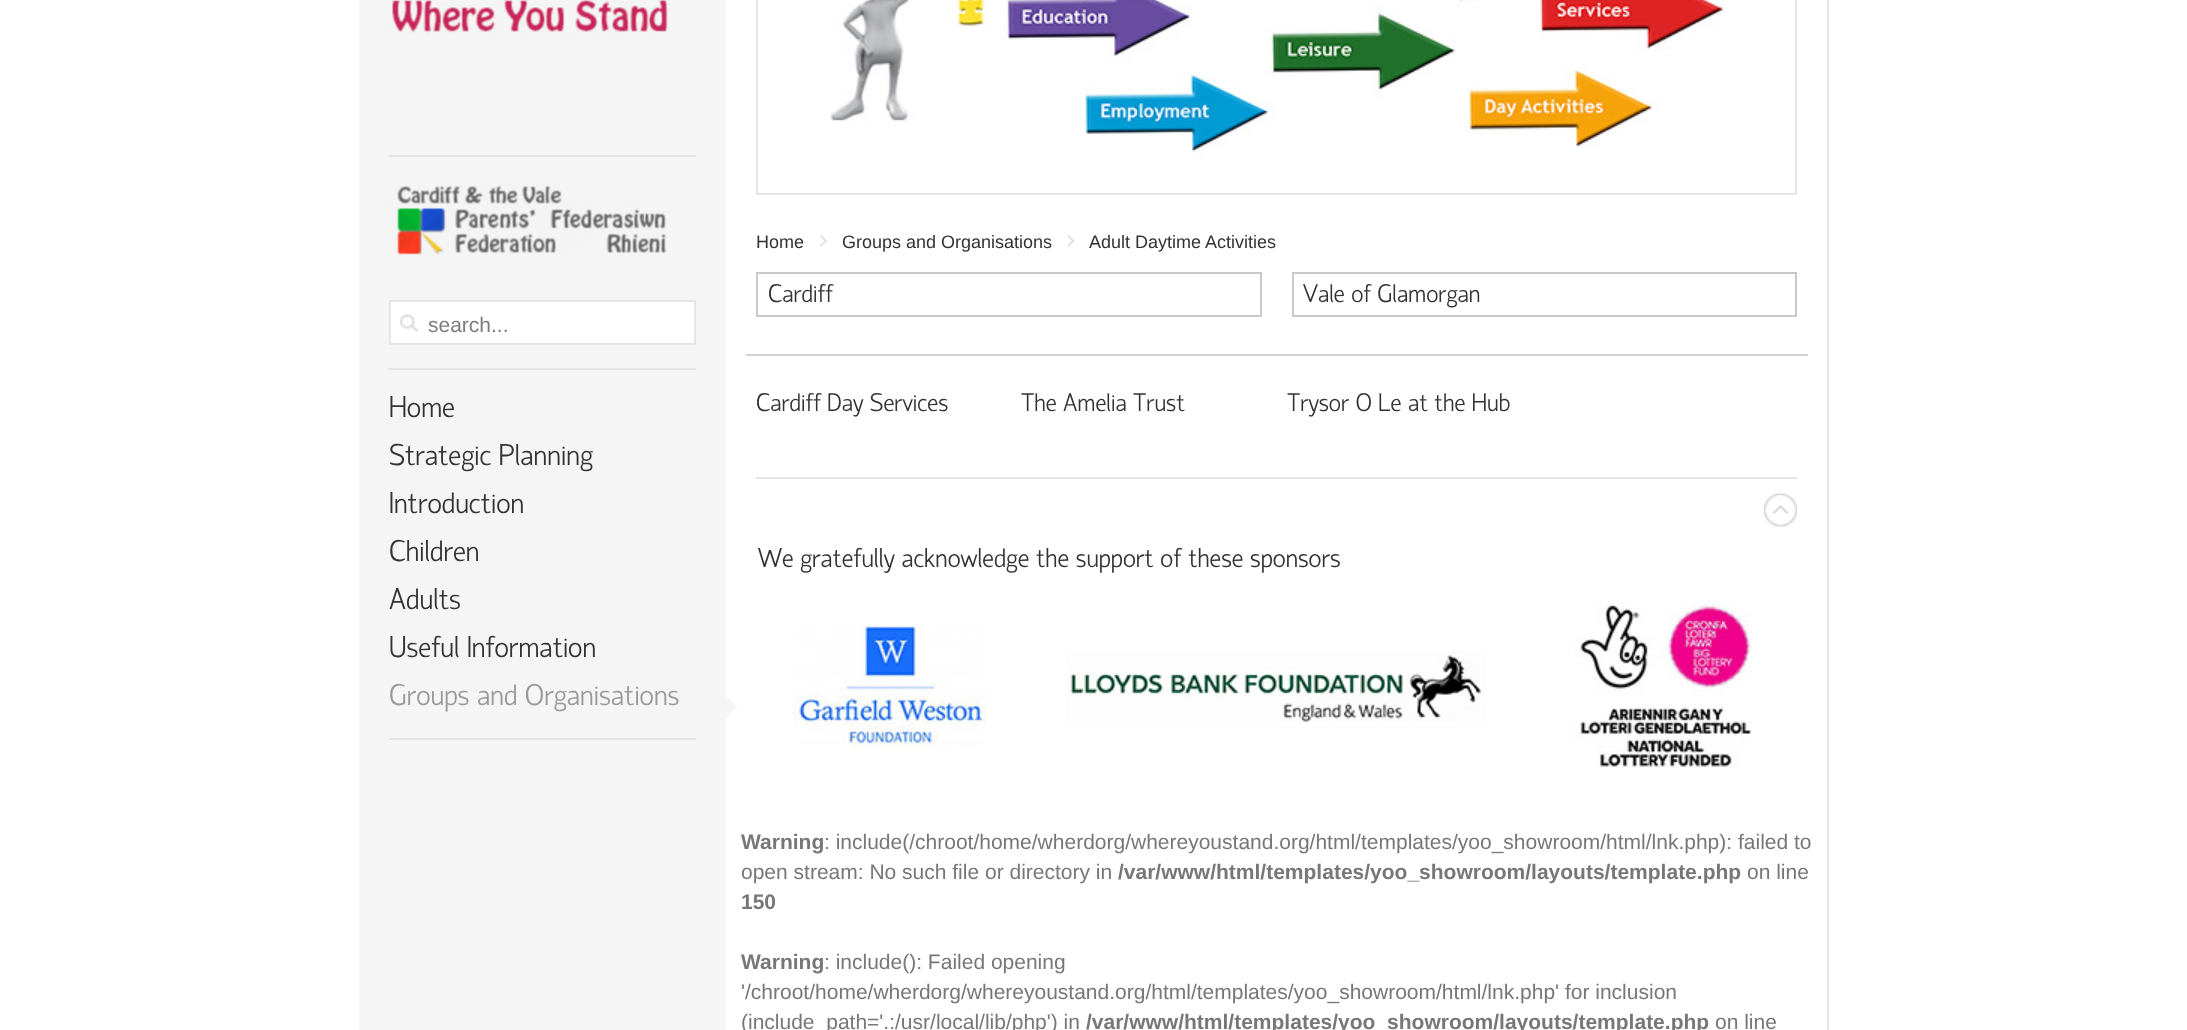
async function draw(canvas) {
  canvas.width = 2187
  canvas.height = 1030
  const ctx = canvas.getContext('2d')
  ctx.miterLimit = 4
  ctx.fontKerning = 'normal'
  async function loadImage(src) {
    const img = new Image()
    img.src = src
    await img.decode()
    return img
  }

  ctx.fillStyle = '#fff'
  ctx.fillRect(0, 0, 2187, 1030)
  ctx.fillStyle = '#f5f5f5'
  ctx.fillRect(359, 0, 367, 1030)
  ctx.fillStyle = '#e5e5e5'
  ctx.fillRect(389, 155, 307, 2)
  ctx.drawImage(await loadImage('image0.png'), 389, 0, 284, 35)
  ctx.fillRect(389, 368, 307, 2)
  ctx.drawImage(await loadImage('image1.png'), 389, 184, 278, 71)
  ctx.fillStyle = '#fff'
  ctx.fillRect(391, 302, 303, 41)
  ctx.drawImage(await loadImage('image2.png'), 400, 314, 19, 18)
  ctx.strokeStyle = '#e5e5e5'
  ctx.lineWidth = 2
  ctx.strokeRect(390, 301, 305, 43)
  ctx.font = '21px Liberation Sans'
  ctx.fillStyle = '#7d7d7d'
  ctx.fillText('search...', 428, 332)
  ctx.fillStyle = '#e5e5e5'
  ctx.fillRect(389, 738, 307, 2)
  ctx.font = '300 30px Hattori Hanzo'
  ctx.fillStyle = '#333'
  ctx.fillText('Home', 389, 417)
  ctx.fillText('Strategic Planning', 389, 465)
  ctx.fillText('Introduction', 389, 513)
  ctx.fillText('Children', 389, 561)
  ctx.fillText('Adults', 389, 609)
  ctx.fillText('Useful Information', 389, 657)
  ctx.fillStyle = '#999'
  ctx.fillText('Groups and Organisations', 389, 705)
  ctx.drawImage(await loadImage('image3.png'), 726, 696, 11, 22)
  ctx.fillStyle = '#e5e5e5'
  ctx.fillRect(1827, 0, 2, 1030)
  ctx.strokeRect(757, -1, 1039, 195)
  ctx.drawImage(await loadImage('image4.png'), 830, 0, 896, 159)
  ctx.drawImage(await loadImage('image5.png'), 820, 235, 7, 12)
  ctx.font = '18px Liberation Sans'
  ctx.fillStyle = '#333'
  ctx.fillText('Home', 756, 248)
  ctx.drawImage(await loadImage('image6.png'), 1068, 235, 6, 12)
  ctx.fillText('Groups and Organisations', 842, 248)
  ctx.fillText('Adult Daytime Activities', 1089, 248)
  ctx.strokeStyle = '#c8c9ca'
  ctx.strokeRect(757, 273, 504, 43)
  ctx.font = '300 25.5px Hattori Hanzo'
  ctx.fillText('Cardiff', 768, 302)
  ctx.strokeRect(1293, 273, 503, 43)
  ctx.fillText('Vale of Glamorgan', 1303, 302)
  ctx.fillStyle = '#d2d3d4'
  ctx.fillRect(746, 354, 1062, 2)
  ctx.fillStyle = '#333'
  ctx.fillText('Cardiff Day Services', 756, 411)
  ctx.fillText('The Amelia Trust', 1021, 411)
  ctx.fillText('Trysor O Le at the Hub', 1287, 411)
  ctx.fillStyle = '#e5e5e5'
  ctx.fillRect(756, 477, 1041, 2)
  ctx.drawImage(await loadImage('image7.png'), 1764, 493, 33, 34)
  ctx.font = '300 27px Hattori Hanzo'
  ctx.fillStyle = '#333'
  ctx.fillText('We gratefully acknowledge the support of these sponsors', 758, 567)
  ctx.drawImage(await loadImage('image8.png'), 793, 624, 193, 125)
  ctx.drawImage(await loadImage('image9.png'), 1067, 651, 419, 71)
  ctx.drawImage(await loadImage('image10.png'), 1574, 600, 178, 168)
  ctx.font = 'bold 21px Liberation Sans'
  ctx.fillStyle = '#777'
  ctx.fillText('Warning', 741, 849)
  ctx.font = '21px Liberation Sans'
  ctx.fillText(': include(/chroot/home/wherdorg/whereyoustand.org/html/templates/yoo_showroom/html/lnk.php): failed to', 824, 849)
  ctx.fillText('open stream: No such file or directory in', 741, 879)
  ctx.font = 'bold 21px Liberation Sans'
  ctx.fillText('/var/www/html/templates/yoo_showroom/layouts/template.php', 1118, 879)
  ctx.font = '21px Liberation Sans'
  ctx.fillText('on line', 1747, 879)
  ctx.font = 'bold 21px Liberation Sans'
  ctx.fillText('150', 741, 909)
  ctx.fillText('Warning', 741, 969)
  ctx.font = '21px Liberation Sans'
  ctx.fillText(': include(): Failed opening', 824, 969)
  ctx.fillText('\'/chroot/home/wherdorg/whereyoustand.org/html/templates/yoo_showroom/html/lnk.php\' for inclusion', 741, 999)
  ctx.fillText('(include_path=\'.:/usr/local/lib/php\') in', 741, 1029)
  ctx.font = 'bold 21px Liberation Sans'
  ctx.fillText('/var/www/html/templates/yoo_showroom/layouts/template.php', 1086, 1029)
  ctx.font = '21px Liberation Sans'
  ctx.fillText('on line', 1715, 1029)
}

draw(document.querySelector('canvas'))
